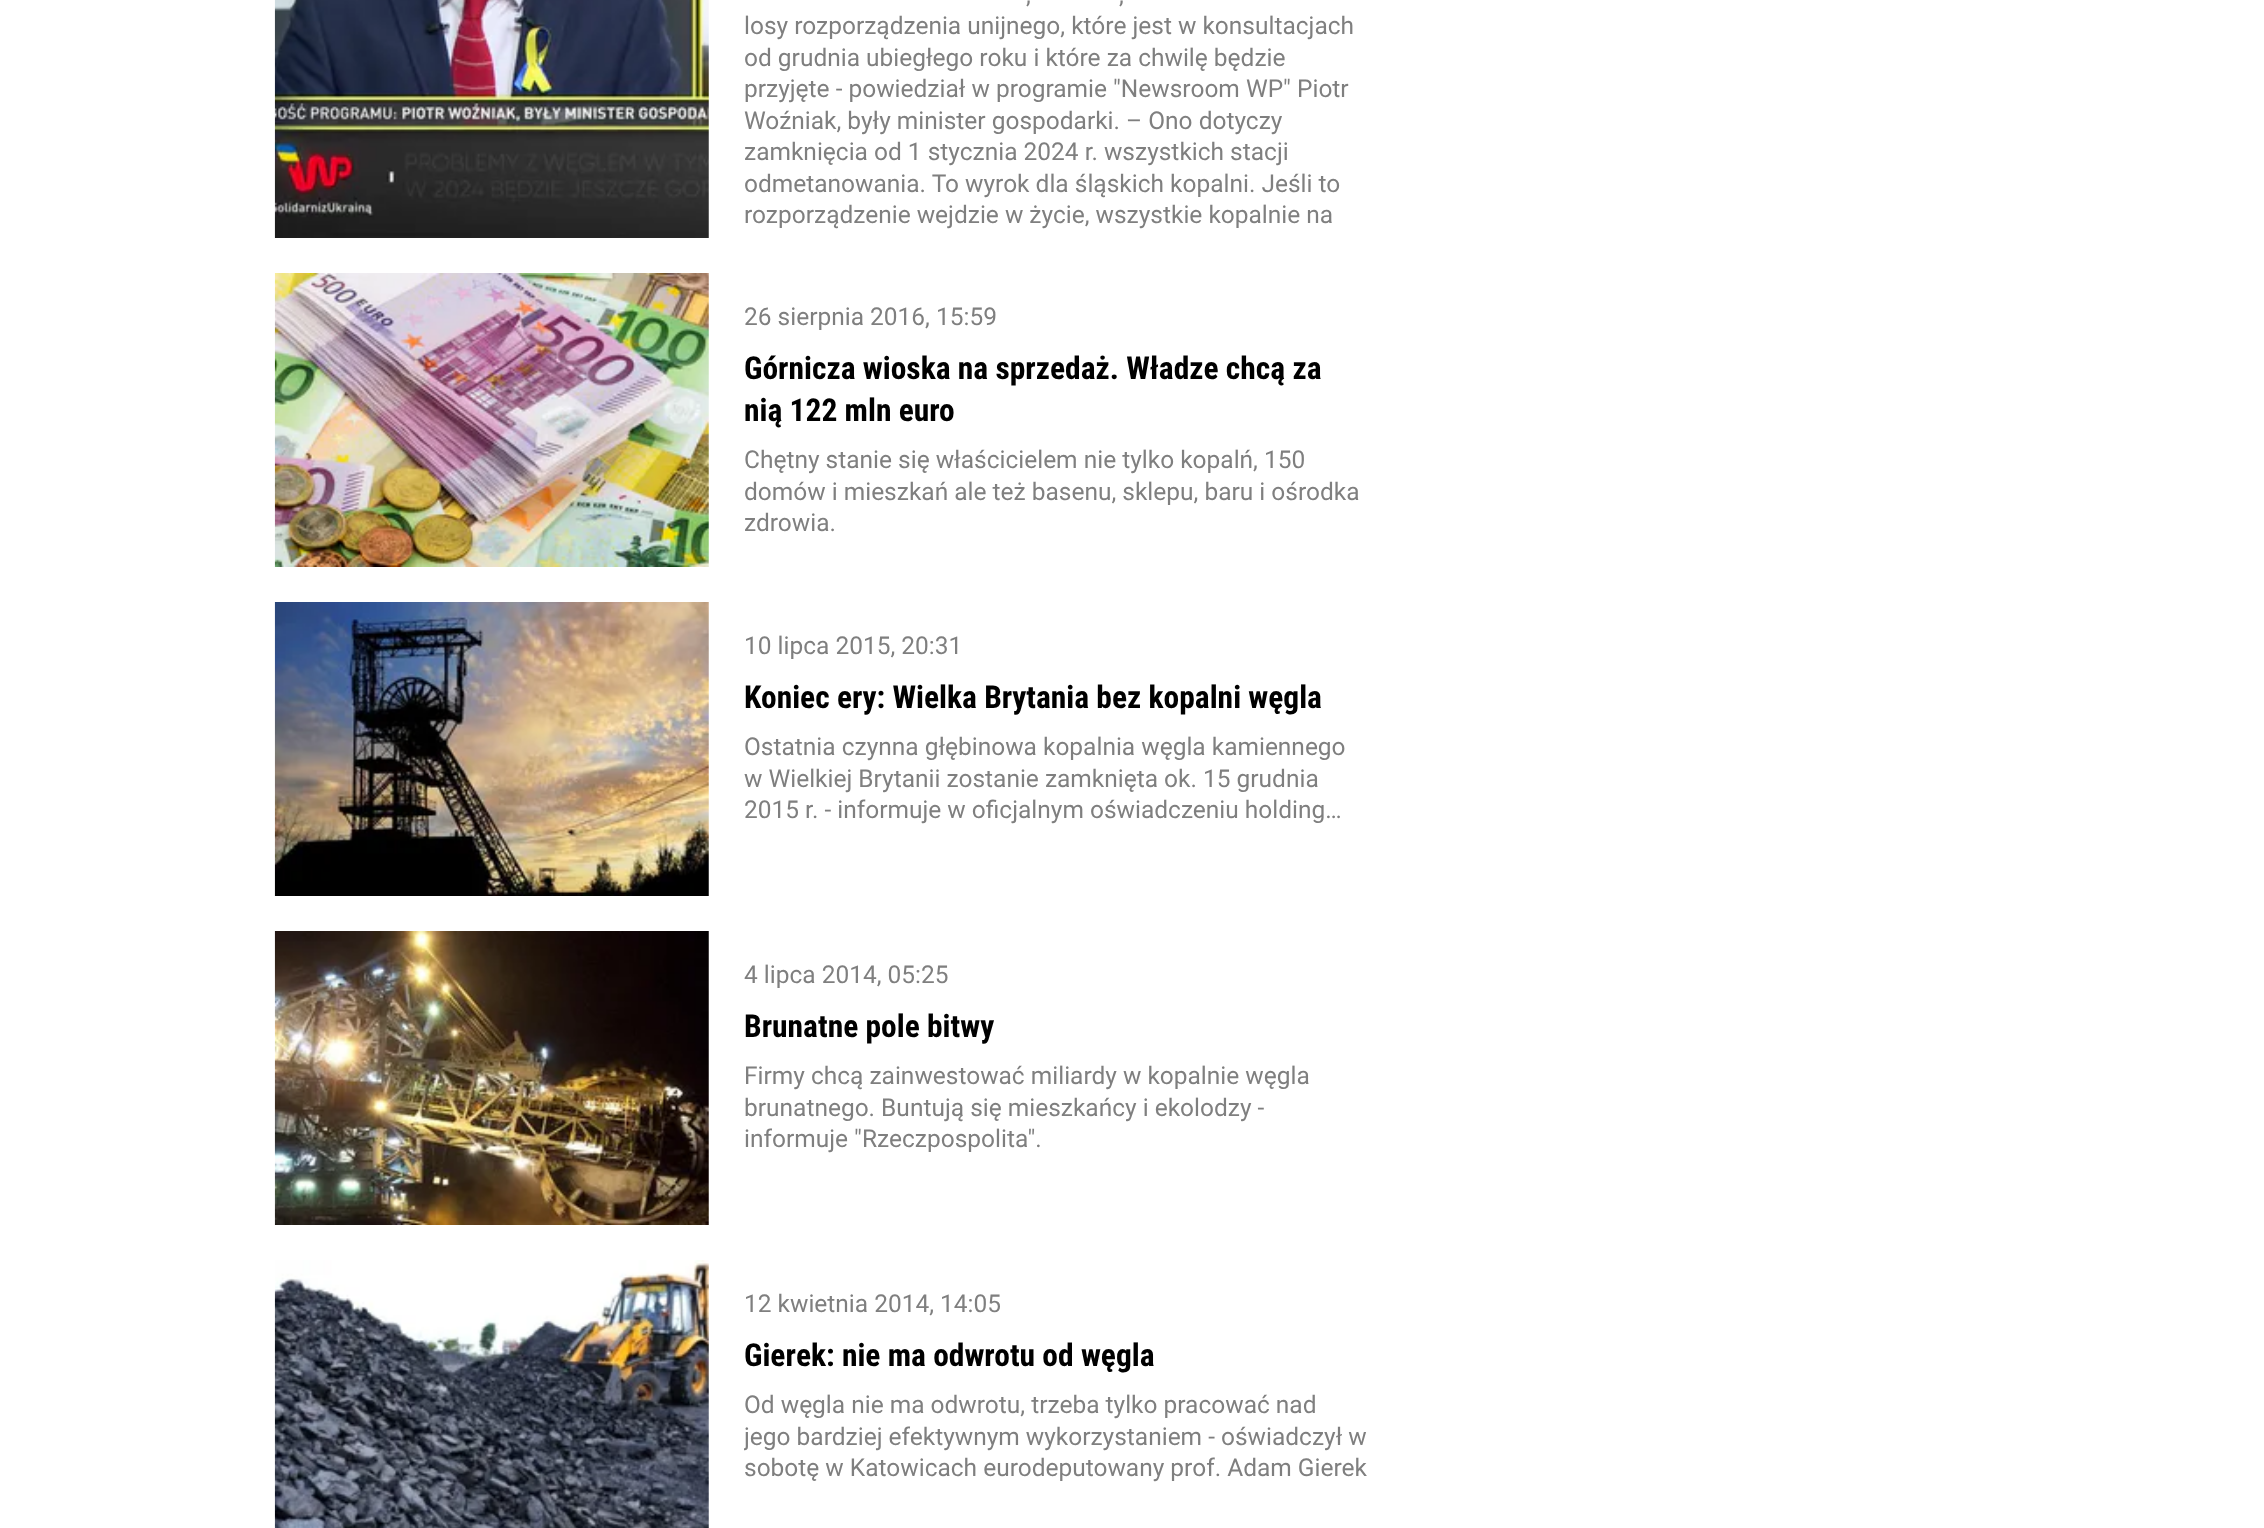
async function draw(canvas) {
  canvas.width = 2264
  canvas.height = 1528
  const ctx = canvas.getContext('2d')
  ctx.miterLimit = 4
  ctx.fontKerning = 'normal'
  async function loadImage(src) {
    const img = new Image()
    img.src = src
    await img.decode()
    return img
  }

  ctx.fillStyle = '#fff'
  ctx.fillRect(0, 0, 2264, 1528)
  ctx.drawImage(await loadImage('image0.png'), 274, 0, 435, 238)
  ctx.font = '24.5px Roboto'
  ctx.fillStyle = '#7f7f7f'
  ctx.fillText(',', 1026, 3)
  ctx.fillText(',', 1119, 3)
  ctx.fillText('losy rozporządzenia unijnego, które jest w konsultacjach', 744, 34)
  ctx.fillText('od grudnia ubiegłego roku i które za chwilę będzie', 744, 66)
  ctx.fillText('przyjęte - powiedział w programie "Newsroom WP" Piotr', 744, 97)
  ctx.fillText('Woźniak, były minister gospodarki. – Ono dotyczy', 744, 129)
  ctx.fillText('zamknięcia od 1 stycznia 2024 r. wszystkich stacji', 744, 160)
  ctx.fillText('odmetanowania. To wyrok dla śląskich kopalni. Jeśli to', 744, 192)
  ctx.fillText('rozporządzenie wejdzie w życie, wszystkie kopalnie na', 744, 223)
  ctx.drawImage(await loadImage('image1.png'), 274, 273, 435, 294)
  ctx.fillText('26 sierpnia 2016, 15:59', 744, 325)
  ctx.font = 'bold 31.5px Roboto Condensed'
  ctx.fillStyle = '#000'
  ctx.fillText('Górnicza wioska na sprzedaż. Władze chcą za', 744, 379)
  ctx.fillText('nią 122 mln euro', 744, 421)
  ctx.font = '24.5px Roboto'
  ctx.fillStyle = '#7f7f7f'
  ctx.fillText('Chętny stanie się właścicielem nie tylko kopalń, 150', 744, 468)
  ctx.fillText('domów i mieszkań ale też basenu, sklepu, baru i ośrodka', 744, 500)
  ctx.fillText('zdrowia.', 744, 531)
  ctx.drawImage(await loadImage('image2.png'), 274, 602, 435, 294)
  ctx.fillText('10 lipca 2015, 20:31', 744, 654)
  ctx.font = 'bold 31.5px Roboto Condensed'
  ctx.fillStyle = '#000'
  ctx.fillText('Koniec ery: Wielka Brytania bez kopalni węgla', 744, 708)
  ctx.font = '24.5px Roboto'
  ctx.fillStyle = '#7f7f7f'
  ctx.fillText('Ostatnia czynna głębinowa kopalnia węgla kamiennego', 744, 755)
  ctx.fillText('w Wielkiej Brytanii zostanie zamknięta ok. 15 grudnia', 744, 787)
  ctx.fillText('2015 r. - informuje w oficjalnym oświadczeniu holding…', 744, 818)
  ctx.drawImage(await loadImage('image3.png'), 274, 931, 435, 294)
  ctx.fillText('4 lipca 2014, 05:25', 744, 983)
  ctx.font = 'bold 31.5px Roboto Condensed'
  ctx.fillStyle = '#000'
  ctx.fillText('Brunatne pole bitwy', 744, 1037)
  ctx.font = '24.5px Roboto'
  ctx.fillStyle = '#7f7f7f'
  ctx.fillText('Firmy chcą zainwestować miliardy w kopalnie węgla', 744, 1084)
  ctx.fillText('brunatnego. Buntują się mieszkańcy i ekolodzy -', 744, 1116)
  ctx.fillText('informuje "Rzeczpospolita".', 744, 1147)
  ctx.drawImage(await loadImage('image4.png'), 274, 1260, 435, 268)
  ctx.fillText('12 kwietnia 2014, 14:05', 744, 1312)
  ctx.font = 'bold 31.5px Roboto Condensed'
  ctx.fillStyle = '#000'
  ctx.fillText('Gierek: nie ma odwrotu od węgla', 744, 1366)
  ctx.font = '24.5px Roboto'
  ctx.fillStyle = '#7f7f7f'
  ctx.fillText('Od węgla nie ma odwrotu, trzeba tylko pracować nad', 744, 1413)
  ctx.save()
  ctx.beginPath()
  ctx.rect(744, 1390, 623, 94)
  ctx.clip()
  ctx.fillText('jego bardziej efektywnym wykorzystaniem - oświadczył w', 744, 1445)
  ctx.restore()
  ctx.fillText('sobotę w Katowicach eurodeputowany prof. Adam Gierek', 744, 1476)
}

draw(document.querySelector('canvas'))
